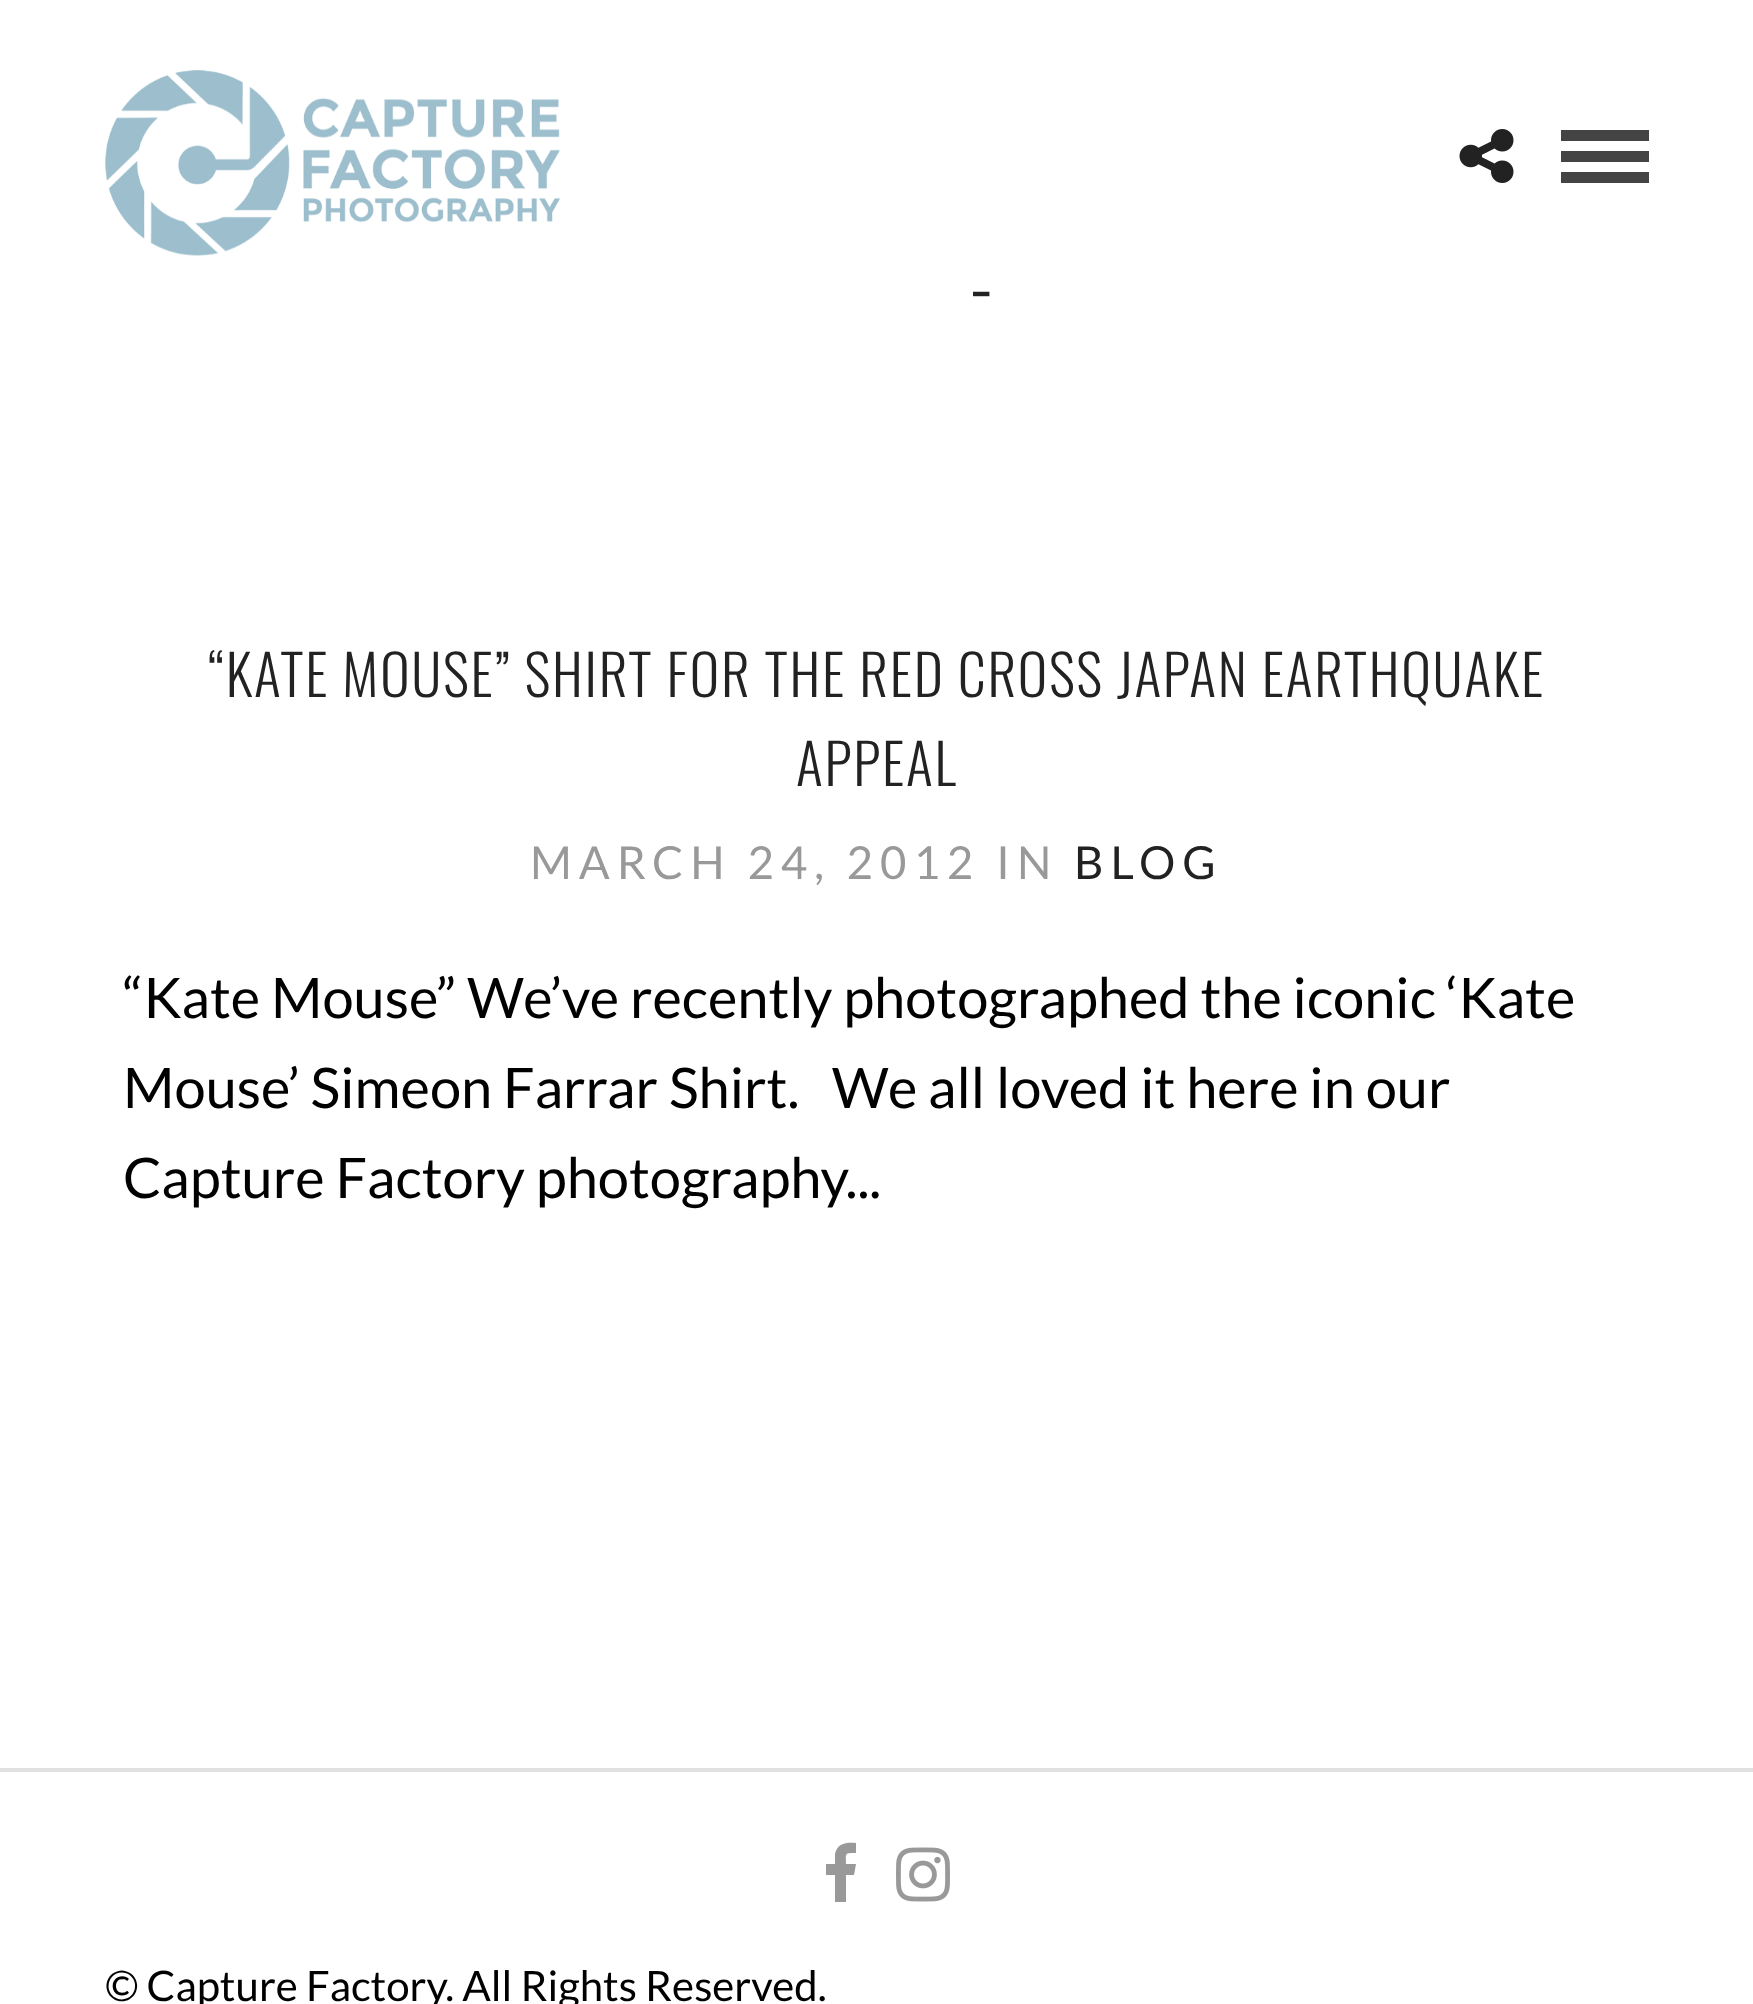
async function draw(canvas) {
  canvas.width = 1753
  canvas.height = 2004
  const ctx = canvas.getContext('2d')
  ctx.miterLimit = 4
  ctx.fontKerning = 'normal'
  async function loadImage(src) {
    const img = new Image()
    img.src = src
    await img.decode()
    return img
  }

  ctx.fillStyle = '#fff'
  ctx.fillRect(0, 0, 1753, 2004)
  ctx.drawImage(await loadImage('image0.png'), 105, 70, 455, 186)
  ctx.drawImage(await loadImage('image1.png'), 1459, 129, 55, 54)
  ctx.fillStyle = '#444'
  ctx.fillRect(1561, 130, 88, 11)
  ctx.fillRect(1561, 151, 88, 11)
  ctx.fillRect(1561, 172, 88, 11)
  ctx.letterSpacing = '4px'
  ctx.font = '300 77px Oswald'
  ctx.fillStyle = '#222'
  ctx.fillText('-', 970, 315)
  ctx.letterSpacing = '1.75px'
  ctx.font = '300 56px Oswald'
  ctx.fillText('“KATE MOUSE” SHIRT FOR THE RED CROSS JAPAN EARTHQUAKE', 208, 697)
  ctx.fillText('APPEAL', 796, 786)
  ctx.letterSpacing = '7px'
  ctx.font = '45.5px Lato'
  ctx.fillStyle = '#999'
  ctx.fillText('MARCH 24, 2012 IN', 530, 879)
  ctx.fillStyle = '#222'
  ctx.fillText('BLOG', 1074, 879)
  ctx.letterSpacing = '0px'
  ctx.font = '56px Lato'
  ctx.fillStyle = '#000'
  ctx.fillText('“Kate Mouse” We’ve recently photographed the iconic ‘Kate', 123, 1018)
  ctx.fillText('Mouse’ Simeon Farrar Shirt.   We all loved it here in our', 123, 1108)
  ctx.fillText('Capture Factory photography...', 123, 1198)
  ctx.fillStyle = '#e1e1e1'
  ctx.fillRect(0, 1768, 1753, 4)
  ctx.fillStyle = '#999'
  ctx.beginPath()
  ctx.moveTo(856, 1843)
  ctx.lineTo(856, 1853)
  ctx.bezierCurveTo(844, 1853, 846, 1853, 846, 1864)
  ctx.lineTo(856, 1864)
  ctx.lineTo(854, 1875)
  ctx.lineTo(846, 1875)
  ctx.lineTo(846, 1902)
  ctx.lineTo(835, 1902)
  ctx.lineTo(835, 1875)
  ctx.lineTo(826, 1875)
  ctx.lineTo(826, 1864)
  ctx.lineTo(835, 1864)
  ctx.lineTo(835, 1854)
  ctx.bezierCurveTo(837, 1843, 847, 1842, 856, 1843)
  ctx.closePath()
  ctx.fill()
  ctx.drawImage(await loadImage('image2.png'), 896, 1847, 54, 55)
  ctx.font = '42px Lato'
  ctx.fillStyle = '#000'
  ctx.fillText('© Capture Factory. All Rights Reserved.', 105, 2001)
}

draw(document.querySelector('canvas'))
